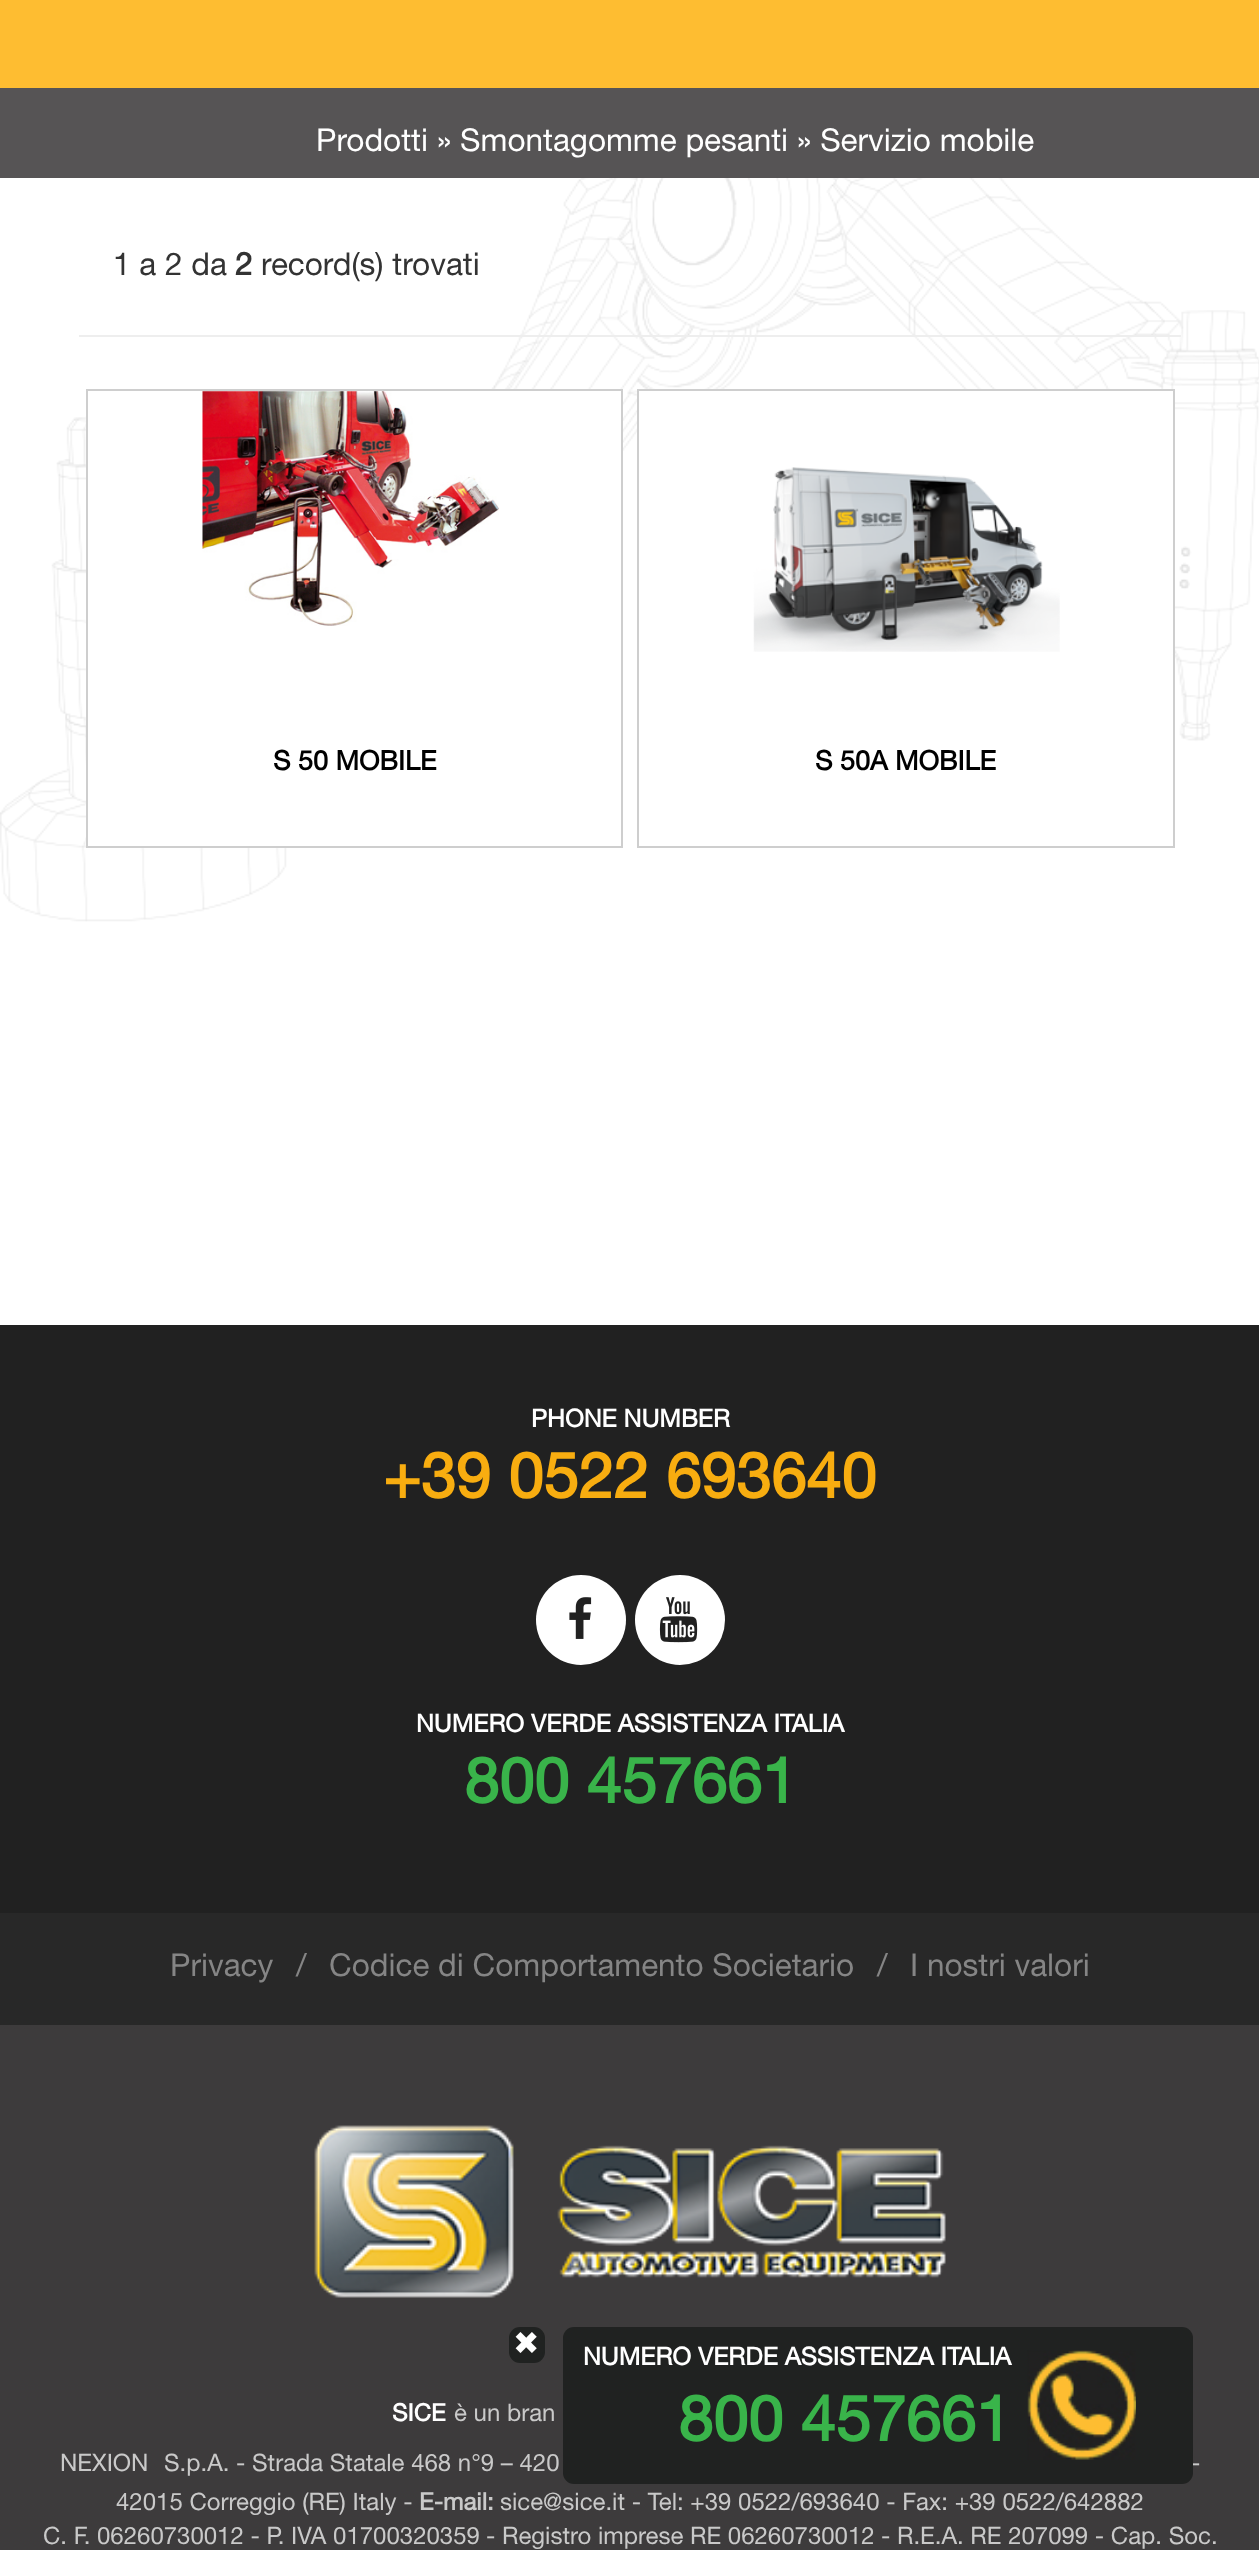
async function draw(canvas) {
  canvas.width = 1259
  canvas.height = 2550
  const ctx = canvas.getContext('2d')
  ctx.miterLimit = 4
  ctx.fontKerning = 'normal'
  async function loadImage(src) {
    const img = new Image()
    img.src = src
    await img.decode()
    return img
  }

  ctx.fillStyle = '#fff'
  ctx.fillRect(0, 0, 1259, 2550)
  ctx.fillStyle = '#febd31'
  ctx.fillRect(0, 0, 1259, 88)
  ctx.drawImage(await loadImage('image0.png'), 0, 178, 1259, 744)
  ctx.fillStyle = '#565455'
  ctx.fillRect(0, 88, 1259, 90)
  ctx.font = '31.5px Helvetica Neue'
  ctx.fillStyle = '#fff'
  ctx.fillText('Prodotti » Smontagomme pesanti » Servizio mobile', 316, 151)
  ctx.fillStyle = '#333'
  ctx.fillText('1 a 2 da', 113, 275)
  ctx.font = 'bold 31.5px Helvetica Neue'
  ctx.fillText('2', 235, 275)
  ctx.font = '31.5px Helvetica Neue'
  ctx.fillText('record(s) trovati', 261, 275)
  ctx.fillStyle = '#eee'
  ctx.fillRect(79, 335, 1102, 2)
  ctx.fillStyle = '#fff'
  ctx.beginPath()
  ctx.rect(87, 390, 535, 457)
  ctx.fill()
  ctx.strokeStyle = '#cecece'
  ctx.lineWidth = 2
  ctx.stroke()
  ctx.drawImage(await loadImage('image1.png'), 202, 391, 297, 235)
  ctx.font = 'bold 27px Helvetica Neue'
  ctx.fillStyle = '#000'
  ctx.fillText('S 50 MOBILE', 273, 770)
  ctx.fillStyle = '#fff'
  ctx.fillRect(639, 391, 534, 263)
  ctx.strokeRect(638, 390, 536, 457)
  ctx.drawImage(await loadImage('image2.png'), 753, 467, 307, 185)
  ctx.fillStyle = '#000'
  ctx.fillText('S 50A MOBILE', 815, 770)
  ctx.fillStyle = '#212121'
  ctx.fillRect(0, 1325, 1259, 588)
  ctx.font = 'bold 24.75px Helvetica Neue'
  ctx.fillStyle = '#fff'
  ctx.fillText('PHONE NUMBER', 531, 1427)
  ctx.font = 'bold 63px Helvetica Neue'
  ctx.fillStyle = '#f8ad10'
  ctx.fillText('+39 0522 693640', 383, 1498)
  ctx.fillStyle = '#fff'
  ctx.beginPath()
  ctx.arc(581, 1620, 45, 0, 2 * Math.PI)
  ctx.fill()
  ctx.drawImage(await loadImage('image3.png'), 569, 1597, 23, 42)
  ctx.beginPath()
  ctx.arc(680, 1620, 45, 0, 2 * Math.PI)
  ctx.fill()
  ctx.drawImage(await loadImage('image4.png'), 659, 1597, 39, 46)
  ctx.font = 'bold 24.75px Helvetica Neue'
  ctx.fillText('NUMERO VERDE ASSISTENZA ITALIA', 416, 1732)
  ctx.font = 'bold 63px Helvetica Neue'
  ctx.fillStyle = '#39b44a'
  ctx.fillText('800 457661', 464, 1803)
  ctx.fillStyle = '#282828'
  ctx.fillRect(0, 1913, 1259, 112)
  ctx.font = '31.5px Helvetica Neue'
  ctx.fillStyle = '#858585'
  ctx.fillText('Privacy', 170, 1976)
  ctx.fillText('/', 296, 1976)
  ctx.fillText('Codice di Comportamento Societario', 329, 1976)
  ctx.fillText('/', 877, 1976)
  ctx.fillText('I nostri valori', 910, 1976)
  ctx.fillStyle = '#3d3b3c'
  ctx.fillRect(0, 2025, 1259, 525)
  ctx.drawImage(await loadImage('image5.png'), 314, 2125, 632, 173)
  ctx.font = 'bold 24px Helvetica Neue'
  ctx.fillStyle = '#fff'
  ctx.fillText('SICE', 392, 2421)
  ctx.font = '24px Helvetica Neue'
  ctx.fillStyle = '#c9c9c9'
  ctx.fillText('è un bran', 454, 2421)
  ctx.fillText('NEXION', 60, 2471)
  ctx.fillText('S.p.A. - Strada Statale 468 n°9 – 420', 164, 2471)
  ctx.fillText('-', 1191, 2471)
  ctx.fillText('42015 Correggio (RE) Italy -', 116, 2510)
  ctx.font = 'bold 24px Helvetica Neue'
  ctx.fillText('E-mail:', 419, 2510)
  ctx.font = '24px Helvetica Neue'
  ctx.fillText('sice@sice.it - Tel: +39 0522/693640 - Fax: +39 0522/642882', 500, 2510)
  ctx.fillText('C. F. 06260730012 - P. IVA 01700320359', 43, 2544)
  ctx.fillText('- Registro imprese RE 06260730012', 486, 2544)
  ctx.fillText('- R.E.A. RE 207099 - Cap. Soc.', 881, 2544)
  ctx.fillStyle = '#202221'
  ctx.beginPath()
  ctx.roundRect(510, 2328, 34, 34, 10)
  ctx.fill()
  ctx.strokeStyle = '#202221'
  ctx.stroke()
  ctx.font = '31.5px DejaVu Sans'
  ctx.fillStyle = '#fff'
  ctx.fillText('✖', 513, 2354)
  ctx.fillStyle = '#202221'
  ctx.beginPath()
  ctx.roundRect(563, 2327, 630, 157, 11)
  ctx.fill()
  ctx.font = 'bold 24.75px Helvetica Neue'
  ctx.fillStyle = '#fff'
  ctx.fillText('NUMERO VERDE ASSISTENZA ITALIA', 583, 2365)
  ctx.drawImage(await loadImage('image6.png'), 1027, 2350, 109, 110)
  ctx.font = 'bold 63px Helvetica Neue'
  ctx.fillStyle = '#39b44a'
  ctx.fillText('800 457661', 678, 2441)
}

draw(document.querySelector('canvas'))
